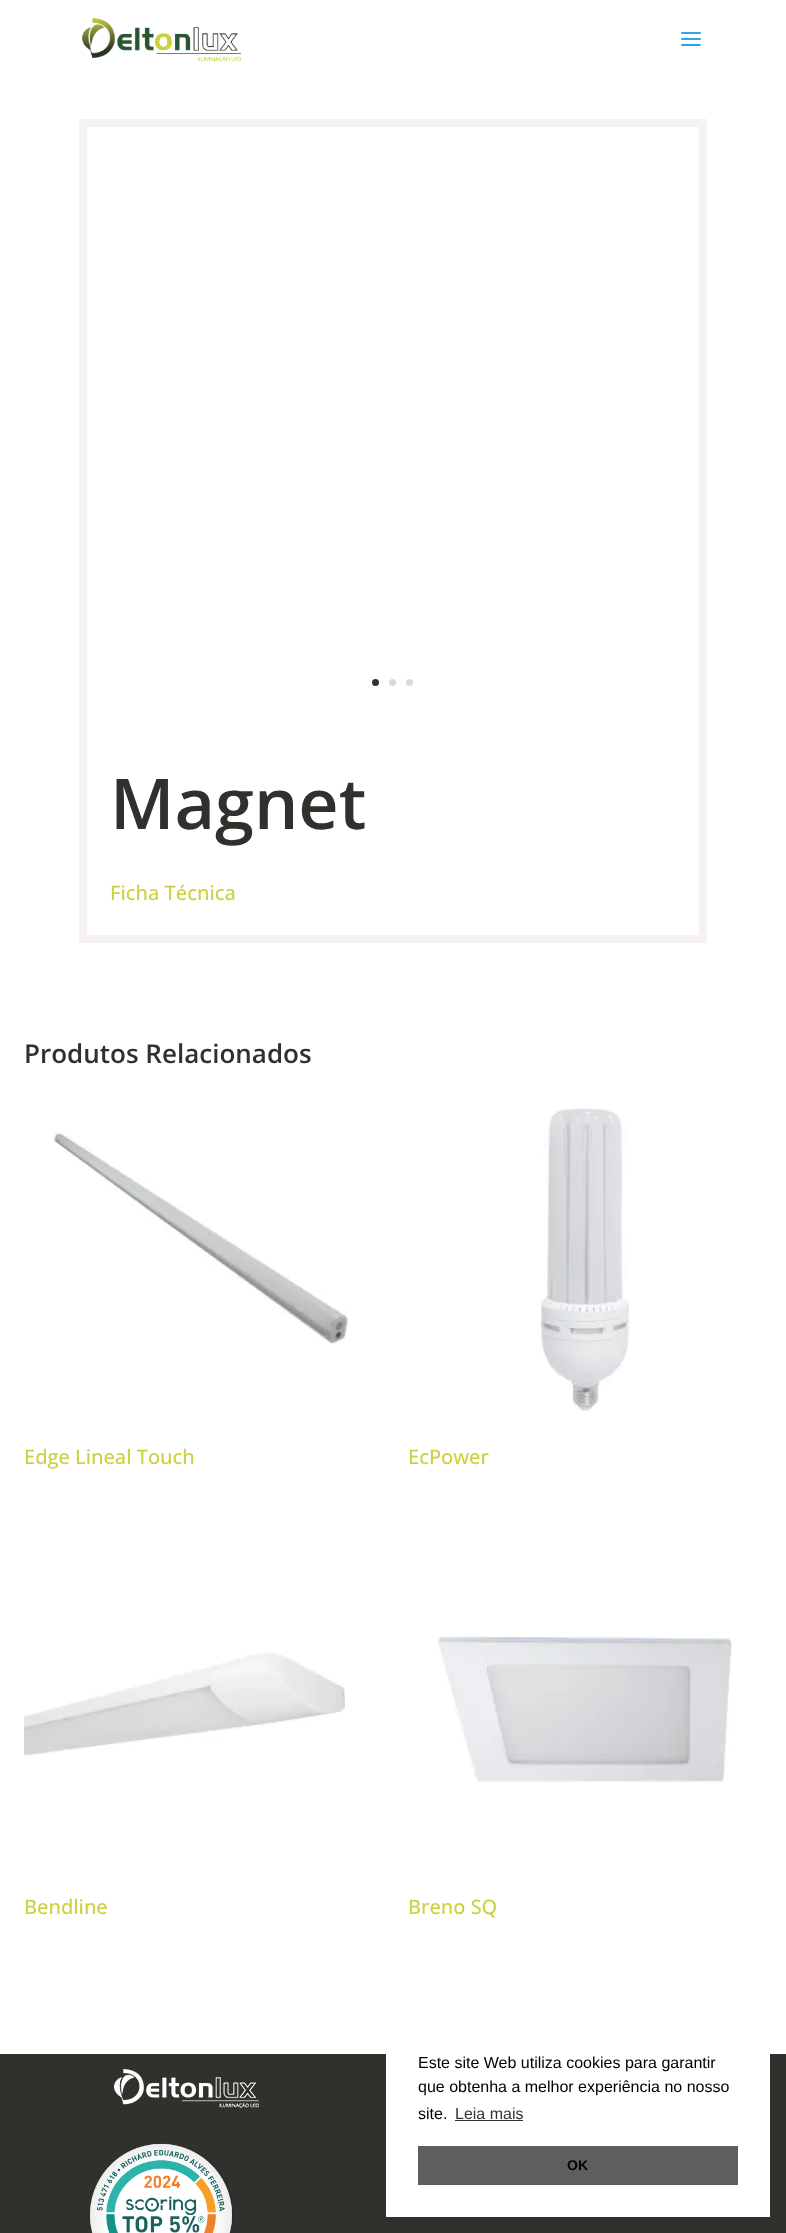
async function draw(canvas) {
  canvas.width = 786
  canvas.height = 2233
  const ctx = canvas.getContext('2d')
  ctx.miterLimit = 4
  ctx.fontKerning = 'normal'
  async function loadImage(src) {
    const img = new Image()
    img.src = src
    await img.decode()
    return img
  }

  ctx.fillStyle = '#fff'
  ctx.fillRect(0, 0, 786, 2233)
  ctx.drawImage(await loadImage('image0.png'), 82, 18, 159, 44)
  ctx.drawImage(await loadImage('image1.png'), 681, 32, 20, 14)
  ctx.strokeStyle = '#f7f2f2'
  ctx.lineWidth = 8
  ctx.strokeRect(83, 123, 620, 816)
  ctx.fillStyle = '#333'
  ctx.beginPath()
  ctx.arc(375.5, 682.5, 3.5, 0, 2 * Math.PI)
  ctx.fill()
  ctx.fillStyle = '#d9d9d9'
  ctx.beginPath()
  ctx.arc(392.5, 682.5, 3.5, 0, 2 * Math.PI)
  ctx.fill()
  ctx.beginPath()
  ctx.arc(409.5, 682.5, 3.5, 0, 2 * Math.PI)
  ctx.fill()
  ctx.font = '600 70px Open Sans'
  ctx.fillStyle = '#30312c'
  ctx.fillText('Magnet', 110, 829)
  ctx.font = '500 20px Open Sans'
  ctx.fillStyle = '#cbd13f'
  ctx.fillText('Ficha Técnica', 110, 900)
  ctx.font = '600 26px Open Sans'
  ctx.fillStyle = '#30312c'
  ctx.fillText('Produtos Relacionados', 24, 1063)
  ctx.drawImage(await loadImage('image2.png'), 52, 1129, 296, 215)
  ctx.font = '500 20px Open Sans'
  ctx.fillStyle = '#cbd13f'
  ctx.fillText('Edge Lineal Touch', 24, 1464)
  ctx.drawImage(await loadImage('image3.png'), 540, 1108, 90, 303)
  ctx.fillText('EcPower', 408, 1464)
  ctx.drawImage(await loadImage('image4.png'), 24, 1652, 321, 104)
  ctx.fillText('Bendline', 24, 1914)
  ctx.drawImage(await loadImage('image5.png'), 438, 1636, 294, 147)
  ctx.fillText('Breno SQ', 408, 1914)
  ctx.fillStyle = '#30312c'
  ctx.fillRect(0, 2054, 786, 179)
  ctx.drawImage(await loadImage('image6.png'), 114, 2069, 145, 39)
  ctx.drawImage(await loadImage('image7.png'), 90, 2143, 143, 90)
  ctx.fillStyle = '#fff'
  ctx.fillRect(386, 2054, 384, 163)
  ctx.font = '16px Liberation Sans'
  ctx.fillStyle = '#000'
  ctx.fillText('Este site Web utiliza cookies para garantir', 418, 2068)
  ctx.fillText('que obtenha a melhor experiência no nosso', 418, 2092)
  ctx.fillText('site.', 418, 2119)
  ctx.fillStyle = '#333'
  ctx.fillText('Leia mais', 455, 2119)
  ctx.fillRect(455, 2120, 68, 1)
  ctx.fillStyle = '#5e5e5e'
  ctx.fillRect(418, 2146, 320, 39)
  ctx.font = 'bold 14px Liberation Sans'
  ctx.fillStyle = '#000'
  ctx.fillText('OK', 567, 2170)
}

draw(document.querySelector('canvas'))
